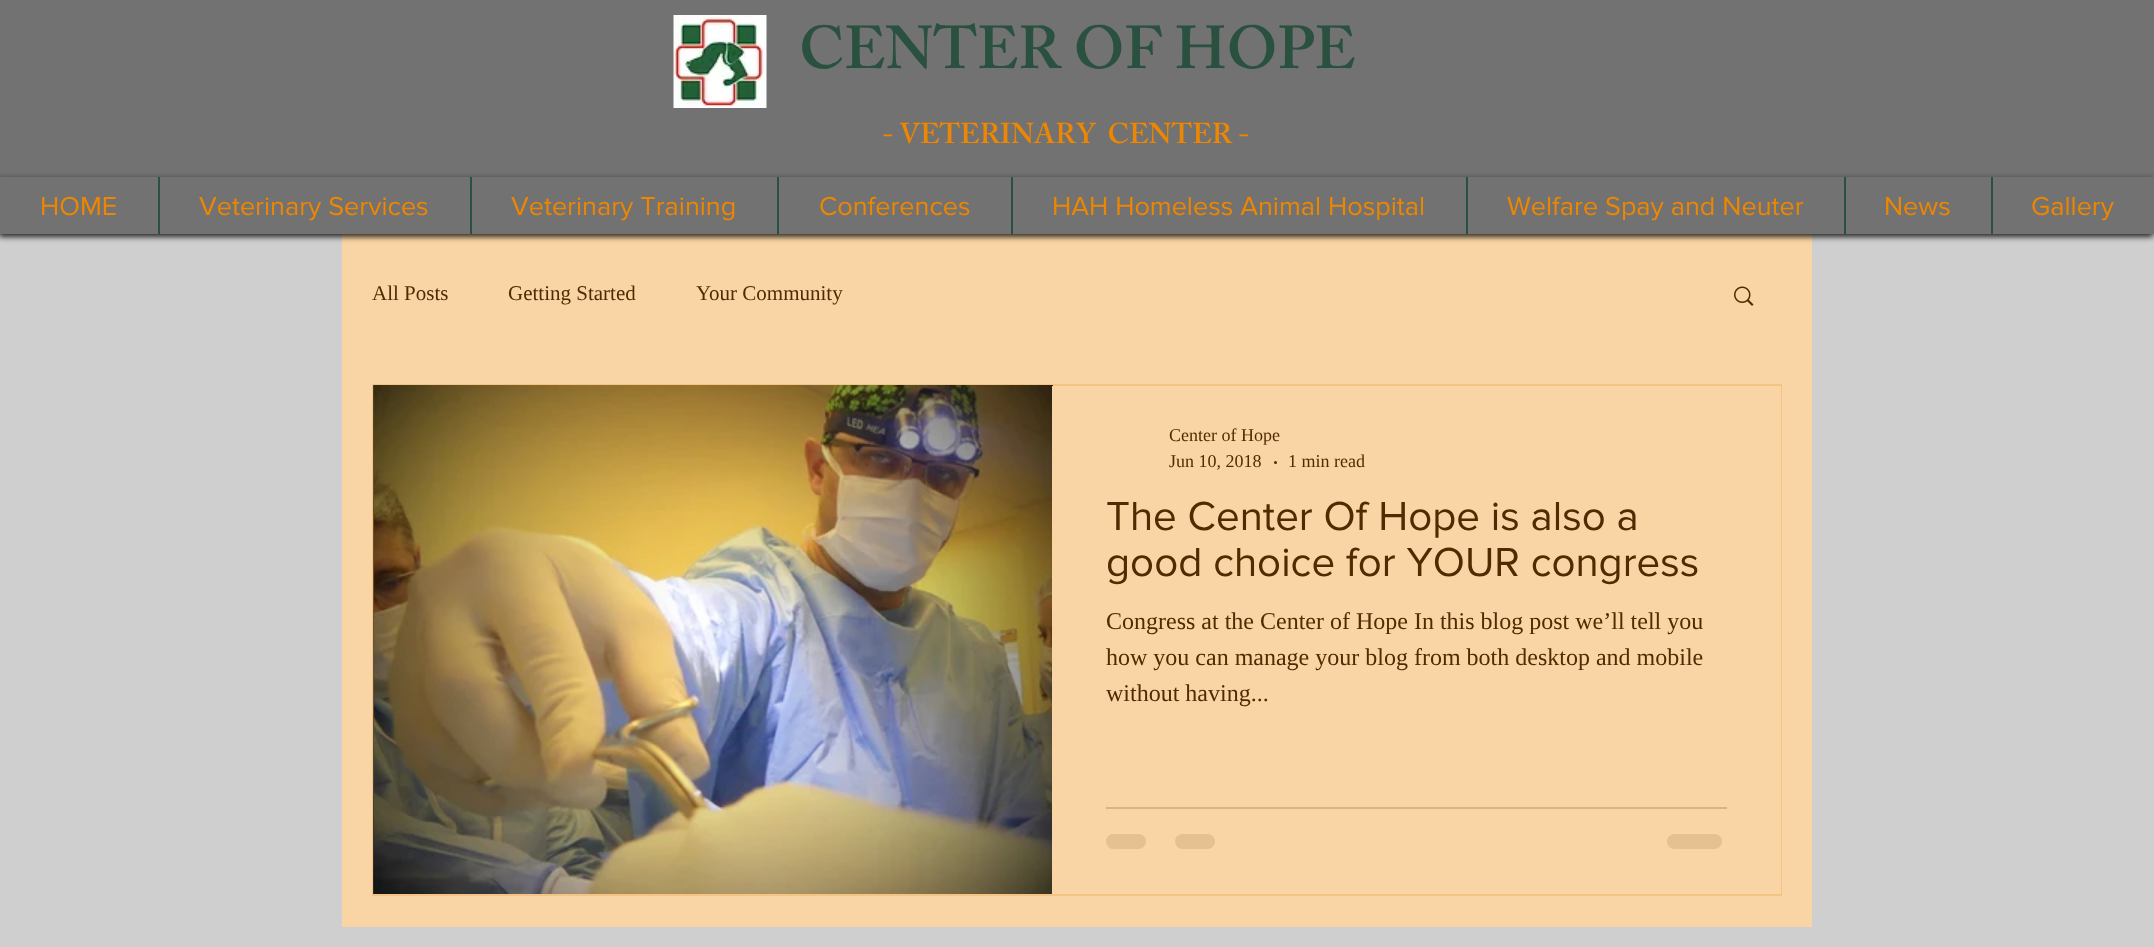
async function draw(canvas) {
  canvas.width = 2154
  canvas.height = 947
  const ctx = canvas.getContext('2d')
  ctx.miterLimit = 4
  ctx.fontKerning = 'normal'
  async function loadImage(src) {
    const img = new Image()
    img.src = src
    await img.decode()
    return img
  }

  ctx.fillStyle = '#cfcfcf'
  ctx.fillRect(0, 0, 2154, 947)
  ctx.fillStyle = '#f9d5a6'
  ctx.fillRect(342, 234, 1470, 693)
  ctx.fillStyle = '#00000099'
  ctx.filter = 'blur(3px)'
  ctx.beginPath()
  ctx.rect(-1, 2, 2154, 234)
  ctx.fill()
  ctx.filter = 'none'
  ctx.fillStyle = '#727272'
  ctx.fillRect(0, 0, 2154, 234)
  ctx.drawImage(await loadImage('image0.png'), 673, 15, 94, 93)
  ctx.font = '600 60px "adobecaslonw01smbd"'
  ctx.fillStyle = '#2a503f'
  ctx.fillText('CENTER OF HOPE', 799, 68)
  ctx.font = '600 28.5px "adobecaslonw01smbd"'
  ctx.fillStyle = '#ed8600'
  ctx.fillText('- VETERINARY  CENTER -', 882, 143)
  ctx.save()
  ctx.beginPath()
  ctx.moveTo(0, 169)
  ctx.lineTo(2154, 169)
  ctx.lineTo(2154, 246)
  ctx.lineTo(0, 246)
  ctx.closePath()
  ctx.moveTo(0, 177)
  ctx.lineTo(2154, 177)
  ctx.lineTo(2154, 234)
  ctx.lineTo(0, 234)
  ctx.closePath()
  ctx.clip('evenodd')
  ctx.fillStyle = '#00000099'
  ctx.filter = 'blur(3px)'
  ctx.beginPath()
  ctx.rect(-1, 179, 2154, 57)
  ctx.fill()
  ctx.filter = 'none'
  ctx.restore()
  ctx.font = '27px "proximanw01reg"'
  ctx.fillText('HOME', 40, 215)
  ctx.fillStyle = '#2a503f'
  ctx.fillRect(158, 177, 2, 57)
  ctx.fillStyle = '#ed8600'
  ctx.fillText('Veterinary Services', 199, 215)
  ctx.fillStyle = '#2a503f'
  ctx.fillRect(470, 177, 2, 57)
  ctx.fillStyle = '#ed8600'
  ctx.fillText('Veterinary Training', 511, 215)
  ctx.fillStyle = '#2a503f'
  ctx.fillRect(777, 177, 2, 57)
  ctx.fillStyle = '#ed8600'
  ctx.fillText('Conferences', 819, 215)
  ctx.fillStyle = '#2a503f'
  ctx.fillRect(1011, 177, 2, 57)
  ctx.fillStyle = '#ed8600'
  ctx.fillText('HAH Homeless Animal Hospital', 1052, 215)
  ctx.fillStyle = '#2a503f'
  ctx.fillRect(1466, 177, 2, 57)
  ctx.fillStyle = '#ed8600'
  ctx.fillText('Welfare Spay and Neuter', 1507, 215)
  ctx.fillStyle = '#2a503f'
  ctx.fillRect(1844, 177, 2, 57)
  ctx.fillStyle = '#ed8600'
  ctx.fillText('News', 1884, 215)
  ctx.fillStyle = '#2a503f'
  ctx.fillRect(1991, 177, 2, 57)
  ctx.fillStyle = '#ed8600'
  ctx.fillText('Gallery', 2031, 215)
  ctx.font = '21px Liberation Serif'
  ctx.fillStyle = '#4f2c00'
  ctx.fillText('All Posts', 372, 300)
  ctx.fillText('Getting Started', 508, 300)
  ctx.fillText('Your Community', 696, 300)
  ctx.drawImage(await loadImage('image1.png'), 1734, 286, 20, 20)
  ctx.strokeStyle = '#f5c484'
  ctx.lineWidth = 2
  ctx.strokeRect(373, 385, 1408, 510)
  ctx.drawImage(await loadImage('image2.png'), 373, 385, 1, 509)
  ctx.drawImage(await loadImage('image3.png'), 374, 385, 679, 509)
  ctx.fillStyle = '#f9d5a6'
  ctx.fillRect(1052, 386, 729, 508)
  ctx.font = '18px Liberation Serif'
  ctx.fillStyle = '#4f2c00'
  ctx.fillText('Center of Hope', 1169, 441)
  ctx.fillText('Jun 10, 2018', 1169, 467)
  ctx.beginPath()
  ctx.arc(1275.5, 462.5, 1.5, 0, 2 * Math.PI)
  ctx.fill()
  ctx.fillText('1 min read', 1288, 467)
  ctx.font = '42px "proximanw01reg"'
  ctx.fillText('The Center Of Hope is also a', 1106, 530)
  ctx.fillText('good choice for YOUR congress', 1106, 576)
  ctx.font = '24px Liberation Serif'
  ctx.fillText('Congress at the Center of Hope In this blog post we’ll tell you', 1106, 629)
  ctx.fillText('how you can manage your blog from both desktop and mobile', 1106, 665)
  ctx.fillText('without having...', 1106, 701)
  ctx.fillStyle = '#d7b385'
  ctx.fillRect(1106, 807, 621, 2)
  ctx.fillStyle = '#e5c192'
  ctx.beginPath()
  ctx.roundRect(1106, 834, 40, 15, 7.5)
  ctx.fill()
  ctx.beginPath()
  ctx.roundRect(1175, 834, 40, 15, 7.5)
  ctx.fill()
  ctx.beginPath()
  ctx.roundRect(1667, 834, 55, 15, 7.5)
  ctx.fill()
}

draw(document.querySelector('canvas'))
